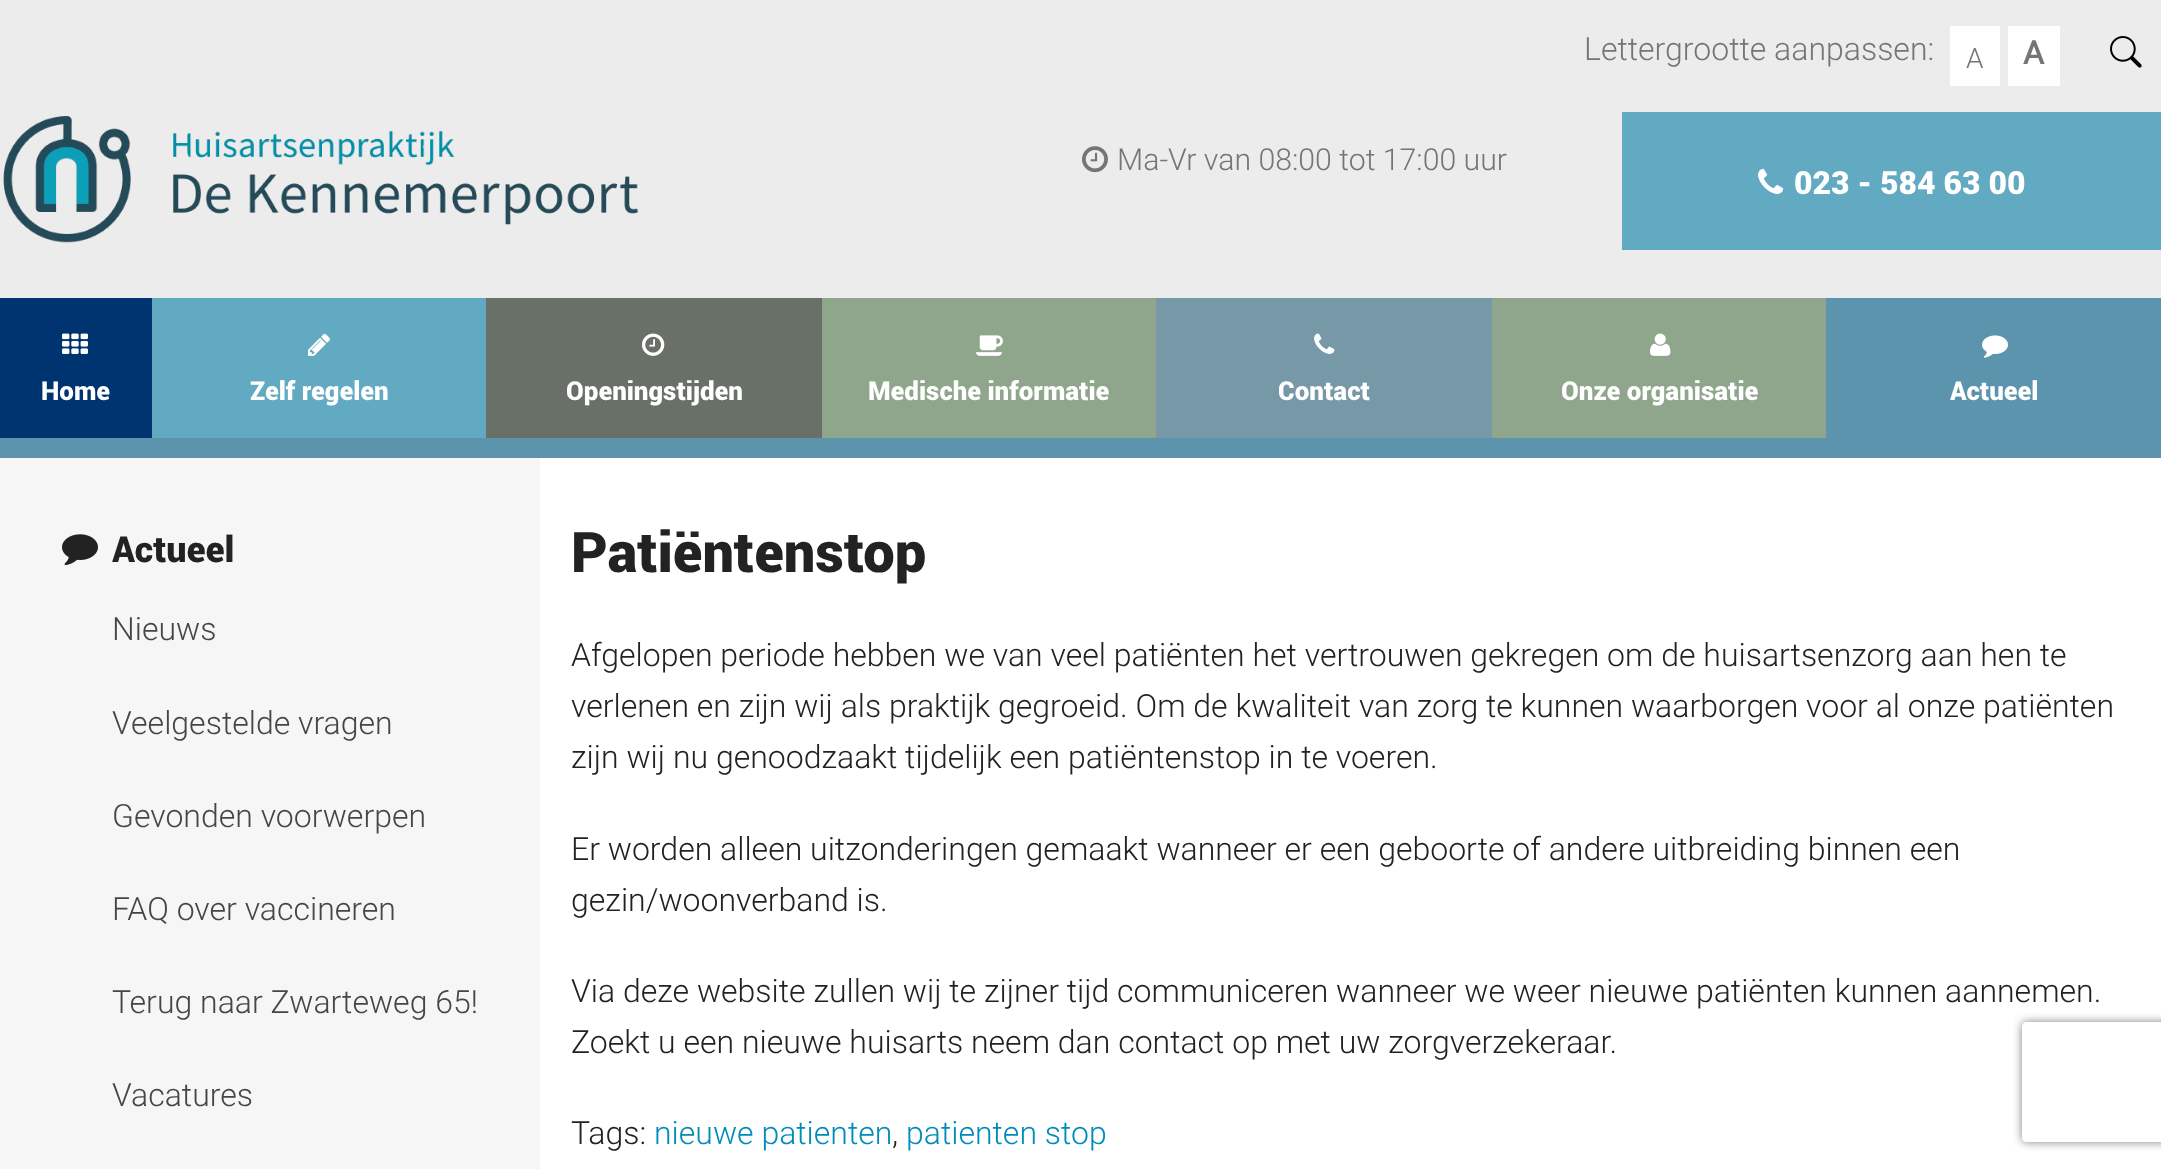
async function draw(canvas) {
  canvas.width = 2161
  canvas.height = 1169
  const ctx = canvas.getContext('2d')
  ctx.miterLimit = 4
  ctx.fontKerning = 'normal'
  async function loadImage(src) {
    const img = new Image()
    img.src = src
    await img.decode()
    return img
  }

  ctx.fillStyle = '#ececec'
  ctx.fillRect(0, 0, 2161, 1169)
  ctx.font = '300 32px Roboto'
  ctx.fillStyle = '#757575'
  ctx.fillText('Lettergrootte aanpassen:', 1584, 60)
  ctx.fillStyle = '#fff'
  ctx.fillRect(1950, 26, 50, 60)
  ctx.font = '300 28px Roboto'
  ctx.fillStyle = '#757575'
  ctx.fillText('A', 1966, 68)
  ctx.fillStyle = '#fff'
  ctx.fillRect(2008, 26, 52, 60)
  ctx.font = 'bold 32px Roboto'
  ctx.fillStyle = '#757575'
  ctx.fillText('A', 2023, 64)
  ctx.drawImage(await loadImage('image0.png'), 2110, 36, 32, 32)
  ctx.drawImage(await loadImage('image1.png'), 3, 116, 636, 127)
  ctx.drawImage(await loadImage('image2.png'), 1082, 146, 26, 27)
  ctx.font = '300 30.25px Roboto'
  ctx.fillText('Ma-Vr van 08:00 tot 17:00 uur', 1117, 170)
  ctx.fillStyle = '#62aac1'
  ctx.fillRect(1622, 112, 539, 138)
  ctx.drawImage(await loadImage('image3.png'), 1758, 168, 26, 26)
  ctx.font = '900 32px Roboto'
  ctx.fillStyle = '#fff'
  ctx.fillText('023 - 584 63 00', 1794, 194)
  ctx.fillStyle = '#003471'
  ctx.fillRect(0, 298, 152, 140)
  ctx.drawImage(await loadImage('image4.png'), 62, 333, 26, 21)
  ctx.font = '900 26px Roboto'
  ctx.fillStyle = '#fff'
  ctx.fillText('Home', 41, 400)
  ctx.fillStyle = '#62aac1'
  ctx.fillRect(152, 298, 334, 140)
  ctx.drawImage(await loadImage('image5.png'), 308, 333, 22, 23)
  ctx.fillStyle = '#fff'
  ctx.fillText('Zelf regelen', 250, 400)
  ctx.fillStyle = '#697067'
  ctx.fillRect(486, 298, 336, 140)
  ctx.drawImage(await loadImage('image6.png'), 642, 333, 23, 23)
  ctx.fillStyle = '#fff'
  ctx.fillText('Openingstijden', 566, 400)
  ctx.fillStyle = '#8fa68d'
  ctx.fillRect(822, 298, 334, 140)
  ctx.drawImage(await loadImage('image7.png'), 976, 335, 27, 21)
  ctx.fillStyle = '#fff'
  ctx.fillText('Medische informatie', 868, 400)
  ctx.fillStyle = '#7798a7'
  ctx.fillRect(1156, 298, 336, 140)
  ctx.drawImage(await loadImage('image8.png'), 1314, 333, 21, 21)
  ctx.fillStyle = '#fff'
  ctx.fillText('Contact', 1278, 400)
  ctx.fillStyle = '#8fa68d'
  ctx.fillRect(1492, 298, 334, 140)
  ctx.drawImage(await loadImage('image9.png'), 1650, 333, 21, 23)
  ctx.fillStyle = '#fff'
  ctx.fillText('Onze organisatie', 1561, 400)
  ctx.fillStyle = '#5c94ad'
  ctx.fillRect(1826, 298, 335, 140)
  ctx.drawImage(await loadImage('image10.png'), 1982, 335, 26, 23)
  ctx.fillStyle = '#fff'
  ctx.fillText('Actueel', 1950, 400)
  ctx.fillStyle = '#5c94ad'
  ctx.fillRect(0, 438, 2161, 20)
  ctx.fillStyle = '#f6f6f6'
  ctx.fillRect(0, 458, 540, 711)
  ctx.drawImage(await loadImage('image11.png'), 62, 534, 36, 32)
  ctx.font = '900 36px Roboto'
  ctx.fillStyle = '#222'
  ctx.fillText('Actueel', 112, 562)
  ctx.font = '300 32px Roboto'
  ctx.fillStyle = '#464646'
  ctx.fillText('Nieuws', 112, 640)
  ctx.fillText('Veelgestelde vragen', 112, 734)
  ctx.fillText('Gevonden voorwerpen', 112, 827)
  ctx.fillText('FAQ over vaccineren', 112, 920)
  ctx.fillText('Terug naar Zwarteweg 65!', 112, 1013)
  ctx.fillText('Vacatures', 112, 1106)
  ctx.fillStyle = '#fff'
  ctx.fillRect(540, 458, 1621, 711)
  ctx.font = '900 56px Roboto'
  ctx.fillStyle = '#222'
  ctx.fillText('Patiëntenstop', 571, 572)
  ctx.font = '300 32px Roboto'
  ctx.fillText('Afgelopen periode hebben we van veel patiënten het vertrouwen gekregen om de huisartsenzorg aan hen te', 571, 666)
  ctx.fillText('verlenen en zijn wij als praktijk gegroeid. Om de kwaliteit van zorg te kunnen waarborgen voor al onze patiënten', 571, 717)
  ctx.fillText('zijn wij nu genoodzaakt tijdelijk een patiëntenstop in te voeren.', 571, 768)
  ctx.fillText('Er worden alleen uitzonderingen gemaakt wanneer er een geboorte of andere uitbreiding binnen een', 571, 860)
  ctx.fillText('gezin/woonverband is.', 571, 911)
  ctx.fillText('Via deze website zullen wij te zijner tijd communiceren wanneer we weer nieuwe patiënten kunnen aannemen.', 571, 1002)
  ctx.fillText('Zoekt u een nieuwe huisarts neem dan contact op met uw zorgverzekeraar.', 571, 1053)
  ctx.fillText('Tags:', 571, 1144)
  ctx.fillStyle = '#008cba'
  ctx.fillText('nieuwe patienten', 654, 1144)
  ctx.fillStyle = '#222'
  ctx.fillText(',', 892, 1144)
  ctx.fillStyle = '#008cba'
  ctx.fillText('patienten stop', 906, 1144)
  ctx.save()
  ctx.beginPath()
  ctx.moveTo(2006, 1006)
  ctx.lineTo(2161, 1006)
  ctx.lineTo(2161, 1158)
  ctx.lineTo(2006, 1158)
  ctx.closePath()
  ctx.moveTo(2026, 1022)
  ctx.lineTo(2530, 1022)
  ctx.bezierCurveTo(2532, 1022, 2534, 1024, 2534, 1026)
  ctx.lineTo(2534, 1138)
  ctx.bezierCurveTo(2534, 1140, 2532, 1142, 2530, 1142)
  ctx.lineTo(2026, 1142)
  ctx.bezierCurveTo(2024, 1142, 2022, 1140, 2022, 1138)
  ctx.lineTo(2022, 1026)
  ctx.bezierCurveTo(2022, 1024, 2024, 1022, 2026, 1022)
  ctx.closePath()
  ctx.clip('evenodd')
  ctx.fillStyle = '#808080'
  ctx.filter = 'blur(5px)'
  ctx.beginPath()
  ctx.roundRect(2022, 1022, 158, 120, 4)
  ctx.fill()
  ctx.filter = 'none'
  ctx.restore()
}

draw(document.querySelector('canvas'))
